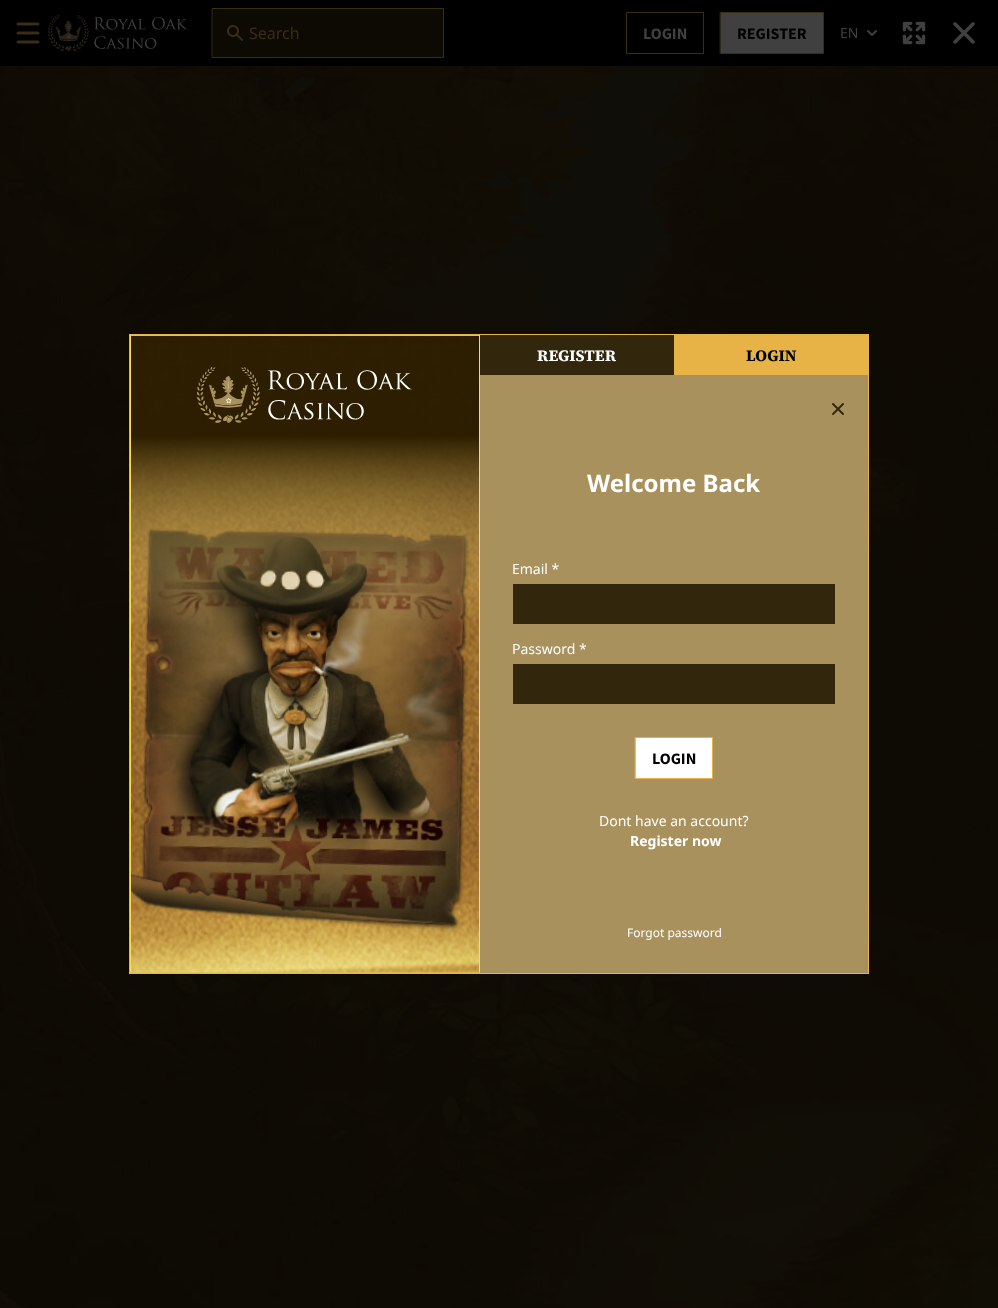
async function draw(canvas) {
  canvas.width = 998
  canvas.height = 1308
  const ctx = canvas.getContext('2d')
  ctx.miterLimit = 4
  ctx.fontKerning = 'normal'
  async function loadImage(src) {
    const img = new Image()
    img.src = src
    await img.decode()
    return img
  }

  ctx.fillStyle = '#fff'
  ctx.fillRect(0, 0, 998, 1308)
  ctx.drawImage(await loadImage('image0.png'), 0, 66, 998, 1242)
  ctx.fillStyle = '#000'
  ctx.fillRect(0, 0, 998, 66)
  ctx.beginPath()
  ctx.moveTo(18, 24)
  ctx.lineTo(38, 24)
  ctx.moveTo(18, 33)
  ctx.lineTo(38, 33)
  ctx.moveTo(18, 42)
  ctx.lineTo(38, 42)
  ctx.strokeStyle = '#3a2d12'
  ctx.lineWidth = 3
  ctx.lineCap = 'round'
  ctx.lineJoin = 'round'
  ctx.stroke()
  ctx.drawImage(await loadImage('image1.png'), 48, 15, 140, 36)
  ctx.fillStyle = '#0d0a03'
  ctx.beginPath()
  ctx.rect(212.5, 8.5, 231, 49)
  ctx.fill()
  ctx.lineWidth = 1
  ctx.lineJoin = 'miter'
  ctx.stroke()
  ctx.drawImage(await loadImage('image2.png'), 227, 25, 16, 16)
  ctx.font = '16px Noto Sans'
  ctx.fillStyle = '#3a2d12'
  ctx.fillText('Search', 249, 39)
  ctx.strokeRect(626.5, 12.5, 77, 41)
  ctx.font = 'bold 16px Source Sans Pro'
  ctx.fillStyle = '#404040'
  ctx.fillText('LOGIN', 643, 39)
  ctx.beginPath()
  ctx.rect(720.5, 12.5, 103, 41)
  ctx.fill()
  ctx.stroke()
  ctx.fillStyle = '#000'
  ctx.fillText('REGISTER', 737, 39)
  ctx.font = '14px Noto Sans'
  ctx.fillStyle = '#404040'
  ctx.fillText('EN', 840, 38)
  ctx.drawImage(await loadImage('image3.png'), 867, 30, 10, 6)
  ctx.drawImage(await loadImage('image4.png'), 902, 21, 24, 24)
  ctx.drawImage(await loadImage('image5.png'), 953, 22, 22, 22)
  ctx.fillStyle = '#a9915e'
  ctx.fillRect(130, 375, 738, 598)
  ctx.strokeStyle = '#e7b346'
  ctx.strokeRect(129.5, 334.5, 739, 639)
  ctx.drawImage(await loadImage('image6.png'), 130, 335, 350, 638)
  ctx.drawImage(await loadImage('image7.png'), 197, 367, 215, 56)
  ctx.fillStyle = '#32260d'
  ctx.fillRect(480, 335, 194, 40)
  ctx.font = 'bold 16px "Source Serif 4"'
  ctx.fillStyle = '#fff'
  ctx.fillText('REGISTER', 537, 361)
  ctx.fillStyle = '#e7b346'
  ctx.fillRect(674, 335, 194, 40)
  ctx.fillStyle = '#000'
  ctx.fillText('LOGIN', 746, 361)
  ctx.font = 'bold 24px Noto Sans'
  ctx.fillStyle = '#fff'
  ctx.fillText('Welcome Back', 587, 492)
  ctx.font = '14px Noto Sans'
  ctx.fillText('Email *', 512, 574)
  ctx.fillStyle = '#32260d'
  ctx.fillRect(513, 584, 322, 40)
  ctx.fillStyle = '#fff'
  ctx.fillText('Password *', 512, 654)
  ctx.fillStyle = '#32260d'
  ctx.fillRect(513, 664, 322, 40)
  ctx.fillStyle = '#fff'
  ctx.beginPath()
  ctx.rect(635.5, 737.5, 77, 41)
  ctx.fill()
  ctx.stroke()
  ctx.font = 'bold 16px Source Sans Pro'
  ctx.fillStyle = '#000'
  ctx.fillText('LOGIN', 652, 764)
  ctx.font = '14px Noto Sans'
  ctx.fillStyle = '#fff'
  ctx.fillText('Dont have an account?', 599, 826)
  ctx.font = 'bold 14px Noto Sans'
  ctx.fillText('Register now', 630, 846)
  ctx.font = '12px Noto Sans'
  ctx.fillText('Forgot password', 627, 937)
  ctx.drawImage(await loadImage('image8.png'), 832, 403, 12, 12)
}

draw(document.querySelector('canvas'))
